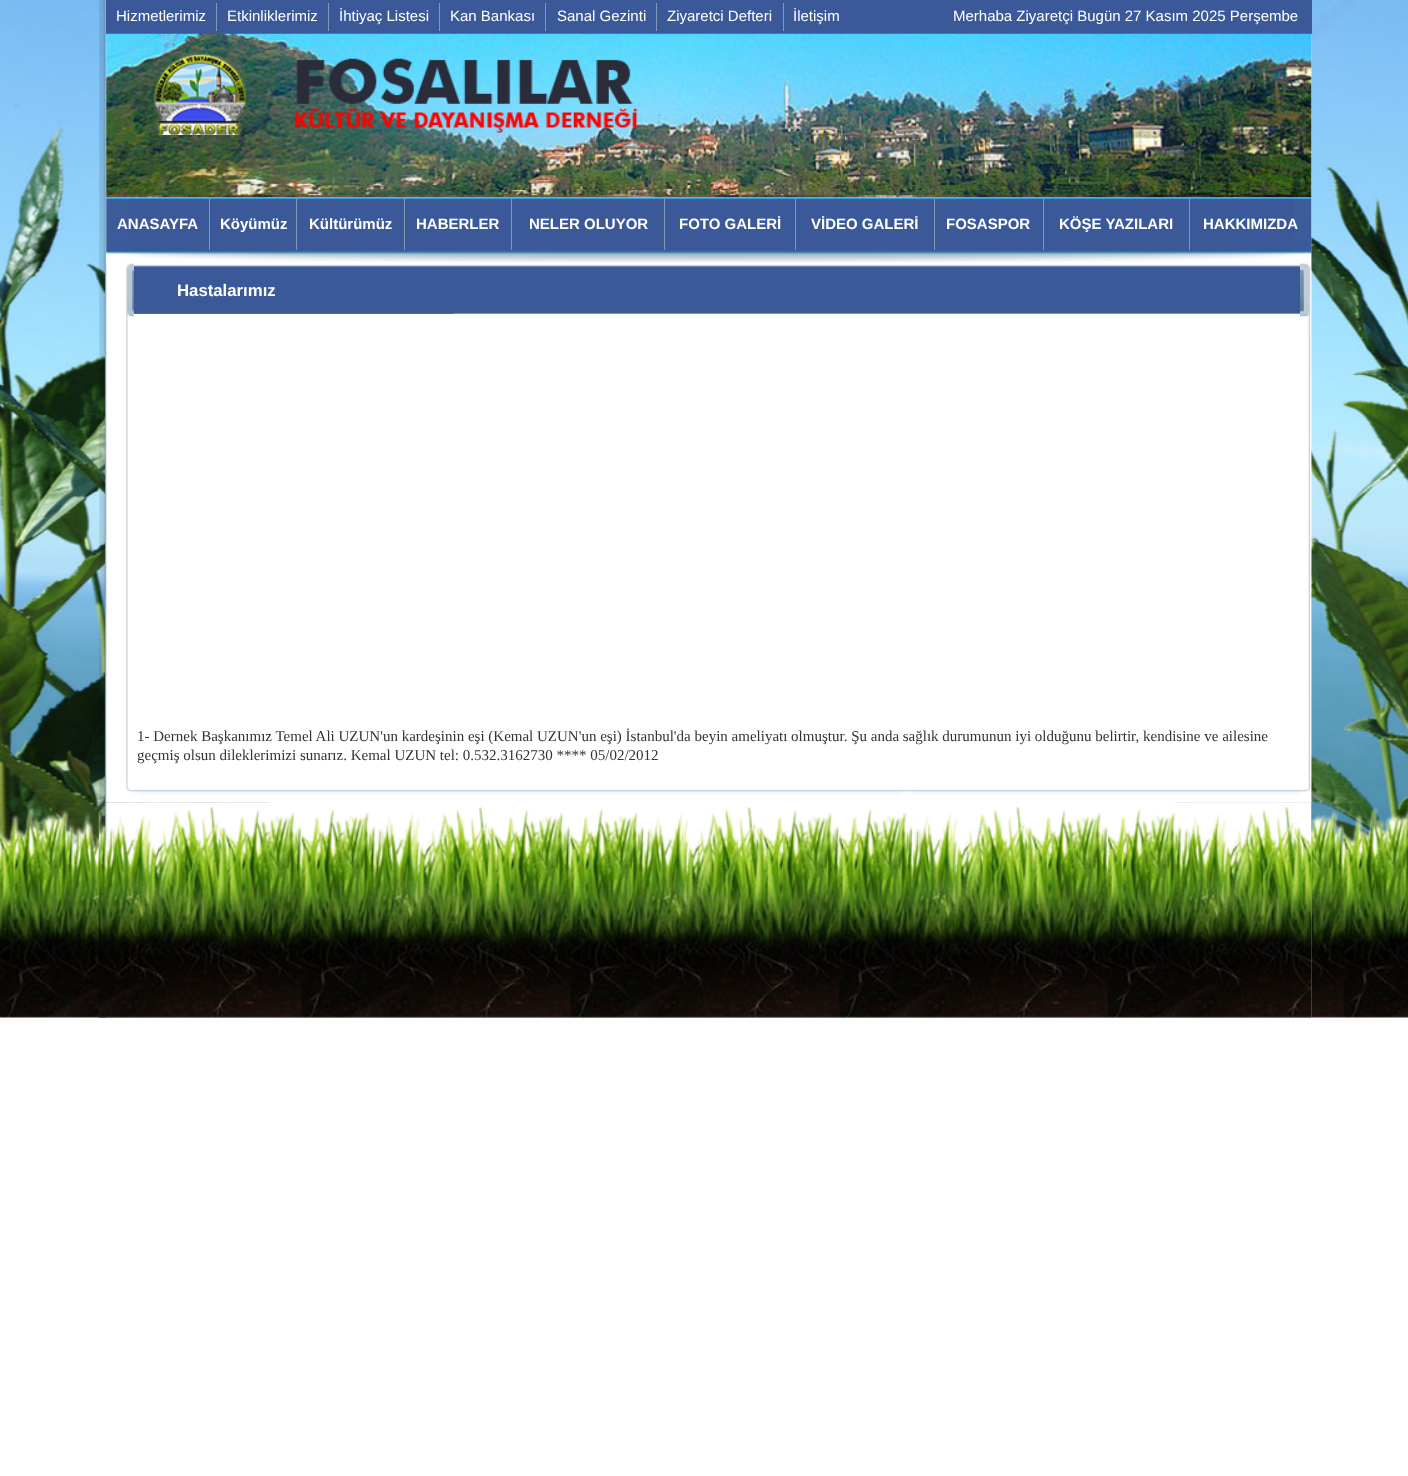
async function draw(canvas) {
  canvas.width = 1408
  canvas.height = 1476
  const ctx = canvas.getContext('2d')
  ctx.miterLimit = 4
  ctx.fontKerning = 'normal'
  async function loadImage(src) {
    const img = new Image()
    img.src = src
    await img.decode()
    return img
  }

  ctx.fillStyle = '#fff'
  ctx.fillRect(0, 0, 1408, 1476)
  ctx.drawImage(await loadImage('image0.png'), 0, 0, 1408, 852)
  ctx.drawImage(await loadImage('image1.png'), 99, 0, 1213, 803)
  ctx.fillStyle = '#3b5998'
  ctx.fillRect(106, 0, 1206, 34)
  ctx.fillStyle = '#7f9ab2'
  ctx.fillRect(216, 3, 1, 28)
  ctx.font = '15px Liberation Sans'
  ctx.fillStyle = '#fff'
  ctx.fillText('Hizmetlerimiz', 116, 21)
  ctx.fillStyle = '#7f9ab2'
  ctx.fillRect(328, 3, 1, 28)
  ctx.fillStyle = '#fff'
  ctx.fillText('Etkinliklerimiz', 227, 21)
  ctx.fillStyle = '#7f9ab2'
  ctx.fillRect(439, 3, 1, 28)
  ctx.fillStyle = '#fff'
  ctx.fillText('İhtiyaç Listesi', 339, 21)
  ctx.fillStyle = '#7f9ab2'
  ctx.fillRect(545, 3, 1, 28)
  ctx.fillStyle = '#fff'
  ctx.fillText('Kan Bankası', 450, 21)
  ctx.fillStyle = '#7f9ab2'
  ctx.fillRect(656, 3, 1, 28)
  ctx.fillStyle = '#fff'
  ctx.fillText('Sanal Gezinti', 557, 21)
  ctx.fillStyle = '#7f9ab2'
  ctx.fillRect(783, 3, 1, 28)
  ctx.fillStyle = '#fff'
  ctx.fillText('Ziyaretci Defteri', 667, 21)
  ctx.fillText('İletişim', 793, 21)
  ctx.fillText('Merhaba Ziyaretçi Bugün 27 Kasım 2025 Perşembe', 953, 21)
  ctx.drawImage(await loadImage('image2.png'), 106, 33, 1206, 165)
  ctx.drawImage(await loadImage('image3.png'), 153, 53, 485, 82)
  ctx.drawImage(await loadImage('image4.png'), 106, 197, 1206, 66)
  ctx.fillStyle = '#7f9ab2'
  ctx.fillRect(209, 198, 1, 52)
  ctx.font = 'bold 15px Liberation Sans'
  ctx.fillStyle = '#fff'
  ctx.fillText('ANASAYFA', 117, 229)
  ctx.fillStyle = '#7f9ab2'
  ctx.fillRect(296, 198, 1, 52)
  ctx.fillStyle = '#fff'
  ctx.fillText('Köyümüz', 220, 229)
  ctx.fillStyle = '#7f9ab2'
  ctx.fillRect(404, 198, 1, 52)
  ctx.fillStyle = '#fff'
  ctx.fillText('Kültürümüz', 309, 229)
  ctx.fillStyle = '#7f9ab2'
  ctx.fillRect(511, 198, 1, 52)
  ctx.fillStyle = '#fff'
  ctx.fillText('HABERLER', 416, 229)
  ctx.fillStyle = '#7f9ab2'
  ctx.fillRect(664, 198, 1, 52)
  ctx.fillStyle = '#fff'
  ctx.fillText('NELER OLUYOR', 529, 229)
  ctx.fillStyle = '#7f9ab2'
  ctx.fillRect(795, 198, 1, 52)
  ctx.fillStyle = '#fff'
  ctx.fillText('FOTO GALERİ', 679, 229)
  ctx.fillStyle = '#7f9ab2'
  ctx.fillRect(934, 198, 1, 52)
  ctx.fillStyle = '#fff'
  ctx.fillText('VİDEO GALERİ', 811, 229)
  ctx.fillStyle = '#7f9ab2'
  ctx.fillRect(1043, 198, 1, 52)
  ctx.fillStyle = '#fff'
  ctx.fillText('FOSASPOR', 946, 229)
  ctx.fillStyle = '#7f9ab2'
  ctx.fillRect(1189, 198, 1, 52)
  ctx.fillStyle = '#fff'
  ctx.fillText('KÖŞE YAZILARI', 1059, 229)
  ctx.fillText('HAKKIMIZDA', 1203, 229)
  ctx.drawImage(await loadImage('image6.png'), 133, 262, 1167, 52)
  ctx.drawImage(await loadImage('image7.png'), 133, 265, 321, 49)
  ctx.drawImage(await loadImage('image9.png'), 126, 318, 2, 466)
  ctx.drawImage(await loadImage('image5.png'), 126, 263, 8, 56)
  ctx.font = 'bold 16.75px Liberation Sans'
  ctx.fillText('Hastalarımız', 177, 296)
  ctx.drawImage(await loadImage('image10.png'), 1308, 318, 4, 466)
  ctx.drawImage(await loadImage('image8.png'), 1300, 262, 12, 57)
  ctx.font = '15px Liberation Serif'
  ctx.fillStyle = '#333'
  ctx.fillText('1- Dernek Başkanımız Temel Ali UZUN\'un kardeşinin eşi (Kemal UZUN\'un eşi) İstanbul\'da beyin ameliyatı olmuştur. Şu anda sağlık durumunun iyi olduğunu belirtir, kendisine ve ailesine', 137, 741)
  ctx.fillText('geçmiş olsun dileklerimizi sunarız. Kemal UZUN tel: 0.532.3162730 **** 05/02/2012', 137, 760)
  ctx.drawImage(await loadImage('image11.png'), 1311, 551, 1, 2)
  ctx.drawImage(await loadImage('image13.png'), 133, 789, 1167, 14)
  ctx.drawImage(await loadImage('image12.png'), 125, 784, 9, 19)
  ctx.drawImage(await loadImage('image14.png'), 133, 791, 2, 12)
  ctx.drawImage(await loadImage('image15.png'), 1300, 783, 12, 20)
  ctx.drawImage(await loadImage('image16.png'), 0, 807, 1408, 211)
  ctx.drawImage(await loadImage('image17.png'), 99, 802, 1213, 216)
  ctx.drawImage(await loadImage('image18.png'), 98, 807, 1214, 211)
}

draw(document.querySelector('canvas'))
